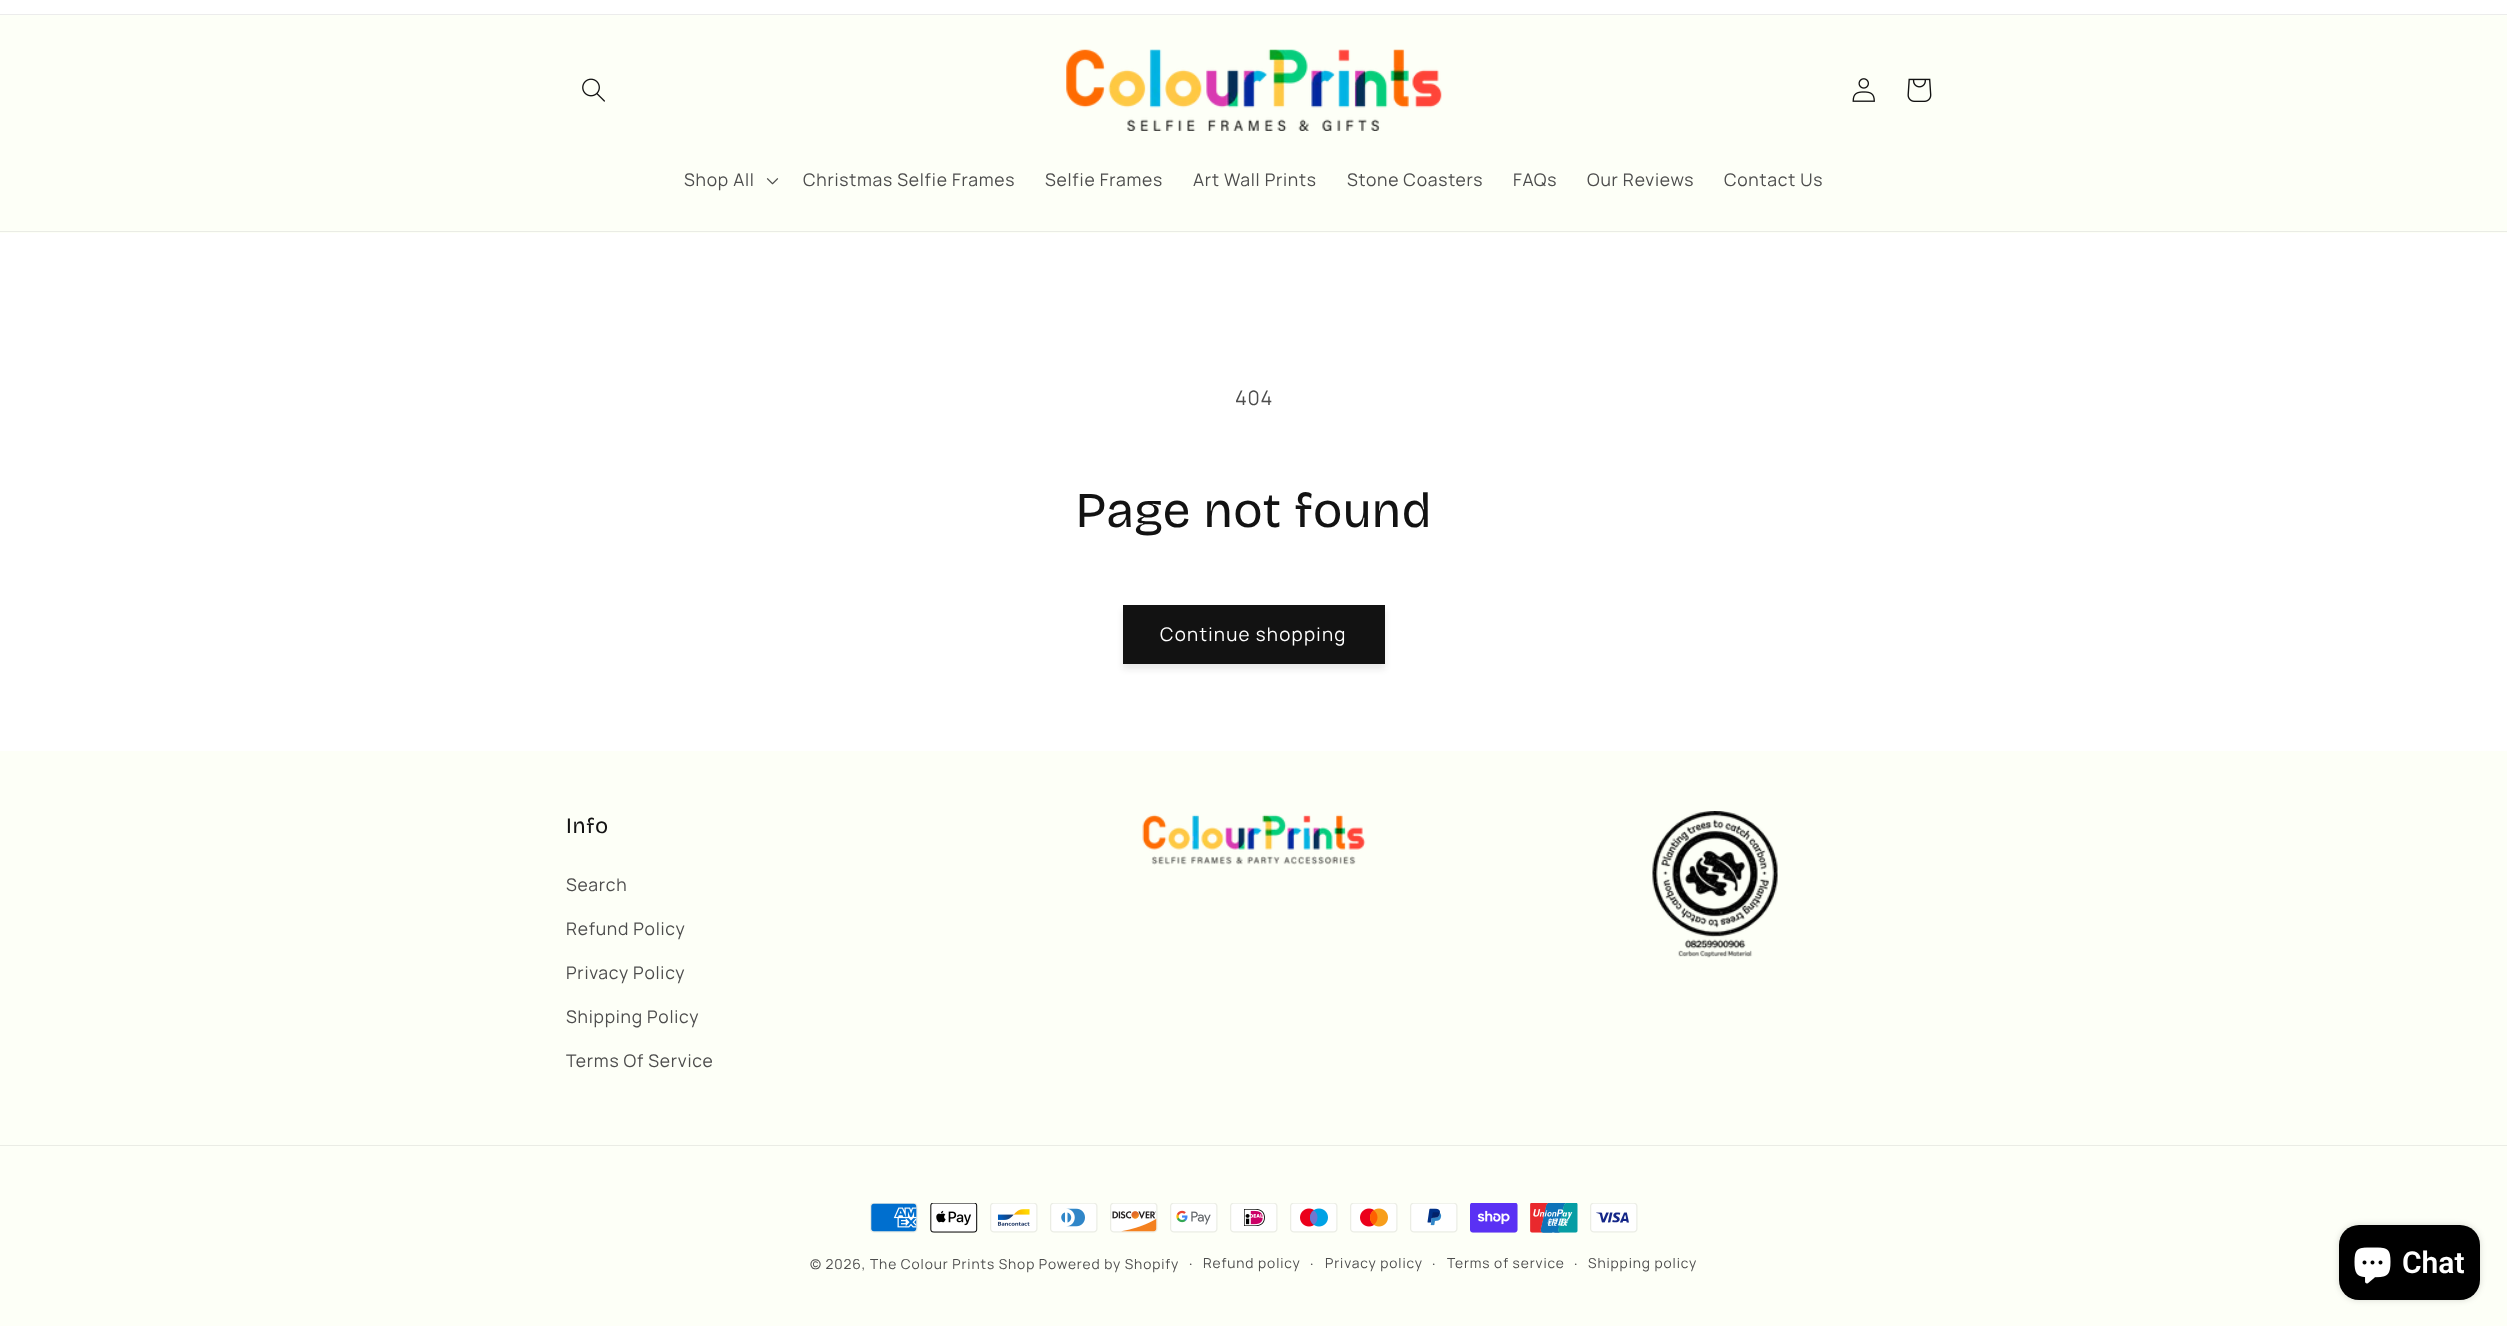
async function draw(canvas) {
  canvas.width = 2507
  canvas.height = 1326
  const ctx = canvas.getContext('2d')
  ctx.miterLimit = 4
  ctx.fontKerning = 'normal'
  async function loadImage(src) {
    const img = new Image()
    img.src = src
    await img.decode()
    return img
  }

  ctx.fillStyle = '#fff'
  ctx.fillRect(0, 0, 2507, 1326)
  ctx.fillStyle = '#ececec'
  ctx.fillRect(0, 14, 2507, 1)
  ctx.fillStyle = '#fdfff7'
  ctx.fillRect(0, 15, 2507, 218)
  ctx.fillStyle = '#eaece5'
  ctx.fillRect(0, 231, 2507, 1)
  ctx.drawImage(await loadImage('image0.png'), 582, 78, 23, 24)
  ctx.drawImage(await loadImage('image1.png'), 1066, 49, 376, 82)
  ctx.drawImage(await loadImage('image2.png'), 1852, 78, 23, 24)
  ctx.drawImage(await loadImage('image3.png'), 1907, 78, 25, 24)
  ctx.letterSpacing = '0.75px'
  ctx.font = '17.5px Manrope'
  ctx.fillStyle = '#4d4d4d'
  ctx.fillText('Shop All', 684, 186)
  ctx.drawImage(await loadImage('image4.png'), 766, 178, 13, 7)
  ctx.fillText('Christmas Selfie Frames', 803, 186)
  ctx.fillText('Selfie Frames', 1045, 186)
  ctx.fillText('Art Wall Prints', 1193, 186)
  ctx.fillText('Stone Coasters', 1347, 186)
  ctx.fillText('FAQs', 1513, 186)
  ctx.fillText('Our Reviews', 1587, 186)
  ctx.fillText('Contact Us', 1724, 186)
  ctx.font = '20px Manrope'
  ctx.fillText('404', 1235, 405)
  ctx.font = '50px Bricolage Grotesque'
  ctx.fillStyle = '#121212'
  ctx.fillText('Page not found', 1076, 527)
  ctx.fillStyle = '#1212121a'
  ctx.filter = 'blur(3px)'
  ctx.beginPath()
  ctx.rect(1123, 610, 262, 59)
  ctx.fill()
  ctx.filter = 'none'
  ctx.fillStyle = '#121212'
  ctx.fillRect(1123, 605, 262, 59)
  ctx.letterSpacing = '1.25px'
  ctx.font = '18.75px Manrope'
  ctx.fillStyle = '#fff'
  ctx.fillText('Continue shopping', 1160, 641)
  ctx.fillStyle = '#fdfff7'
  ctx.fillRect(0, 751, 2507, 575)
  ctx.letterSpacing = '0.75px'
  ctx.font = '22px "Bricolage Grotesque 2"'
  ctx.fillStyle = '#121212'
  ctx.fillText('Info', 566, 833)
  ctx.font = '17.5px Manrope'
  ctx.fillStyle = '#4d4d4d'
  ctx.fillText('Search', 566, 891)
  ctx.fillText('Refund Policy', 566, 935)
  ctx.fillText('Privacy Policy', 566, 979)
  ctx.fillText('Shipping Policy', 566, 1023)
  ctx.fillText('Terms Of Service', 566, 1067)
  ctx.drawImage(await loadImage('image5.png'), 1142, 814, 224, 51)
  ctx.drawImage(await loadImage('image6.png'), 1652, 811, 126, 147)
  ctx.fillStyle = '#eaece5'
  ctx.fillRect(0, 1145, 2507, 1)
  ctx.drawImage(await loadImage('image7.png'), 870, 1203, 48, 30)
  ctx.drawImage(await loadImage('image8.png'), 930, 1203, 48, 30)
  ctx.drawImage(await loadImage('image9.png'), 990, 1203, 48, 30)
  ctx.drawImage(await loadImage('image10.png'), 1050, 1203, 48, 30)
  ctx.drawImage(await loadImage('image11.png'), 1110, 1203, 48, 30)
  ctx.drawImage(await loadImage('image12.png'), 1170, 1203, 48, 30)
  ctx.drawImage(await loadImage('image13.png'), 1230, 1203, 48, 30)
  ctx.drawImage(await loadImage('image14.png'), 1290, 1203, 48, 30)
  ctx.drawImage(await loadImage('image15.png'), 1350, 1203, 48, 30)
  ctx.drawImage(await loadImage('image16.png'), 1410, 1203, 48, 30)
  ctx.drawImage(await loadImage('image17.png'), 1470, 1203, 48, 30)
  ctx.drawImage(await loadImage('image18.png'), 1530, 1203, 48, 30)
  ctx.drawImage(await loadImage('image19.png'), 1590, 1203, 48, 30)
  ctx.letterSpacing = '0.9px'
  ctx.font = '13.75px Manrope'
  ctx.fillStyle = '#4d4d4d'
  ctx.fillText('© 2026, The Colour Prints Shop Powered by Shopify', 810, 1269)
  ctx.font = '15px Manrope'
  ctx.fillText('·', 1189, 1269)
  ctx.font = '13.75px Manrope'
  ctx.fillText('Refund policy', 1203, 1268)
  ctx.font = '15px Manrope'
  ctx.fillText('·', 1310, 1269)
  ctx.font = '13.75px Manrope'
  ctx.fillText('Privacy policy', 1325, 1268)
  ctx.font = '15px Manrope'
  ctx.fillText('·', 1432, 1269)
  ctx.font = '13.75px Manrope'
  ctx.fillText('Terms of service', 1447, 1268)
  ctx.font = '15px Manrope'
  ctx.fillText('·', 1574, 1269)
  ctx.font = '13.75px Manrope'
  ctx.fillText('Shipping policy', 1588, 1268)
  ctx.fillStyle = '#00000026'
  ctx.filter = 'blur(3px)'
  ctx.beginPath()
  ctx.roundRect(2339, 1225, 141, 75, 20)
  ctx.fill()
  ctx.filter = 'none'
  ctx.fillStyle = '#000'
  ctx.beginPath()
  ctx.roundRect(2339, 1225, 141, 75, 20)
  ctx.fill()
  ctx.drawImage(await loadImage('image20.png'), 2354, 1247, 37, 37)
  ctx.letterSpacing = '0px'
  ctx.font = '600 30px Roboto'
  ctx.fillStyle = '#fff'
  ctx.fillText('Chat', 2402, 1273)
}

draw(document.querySelector('canvas'))
